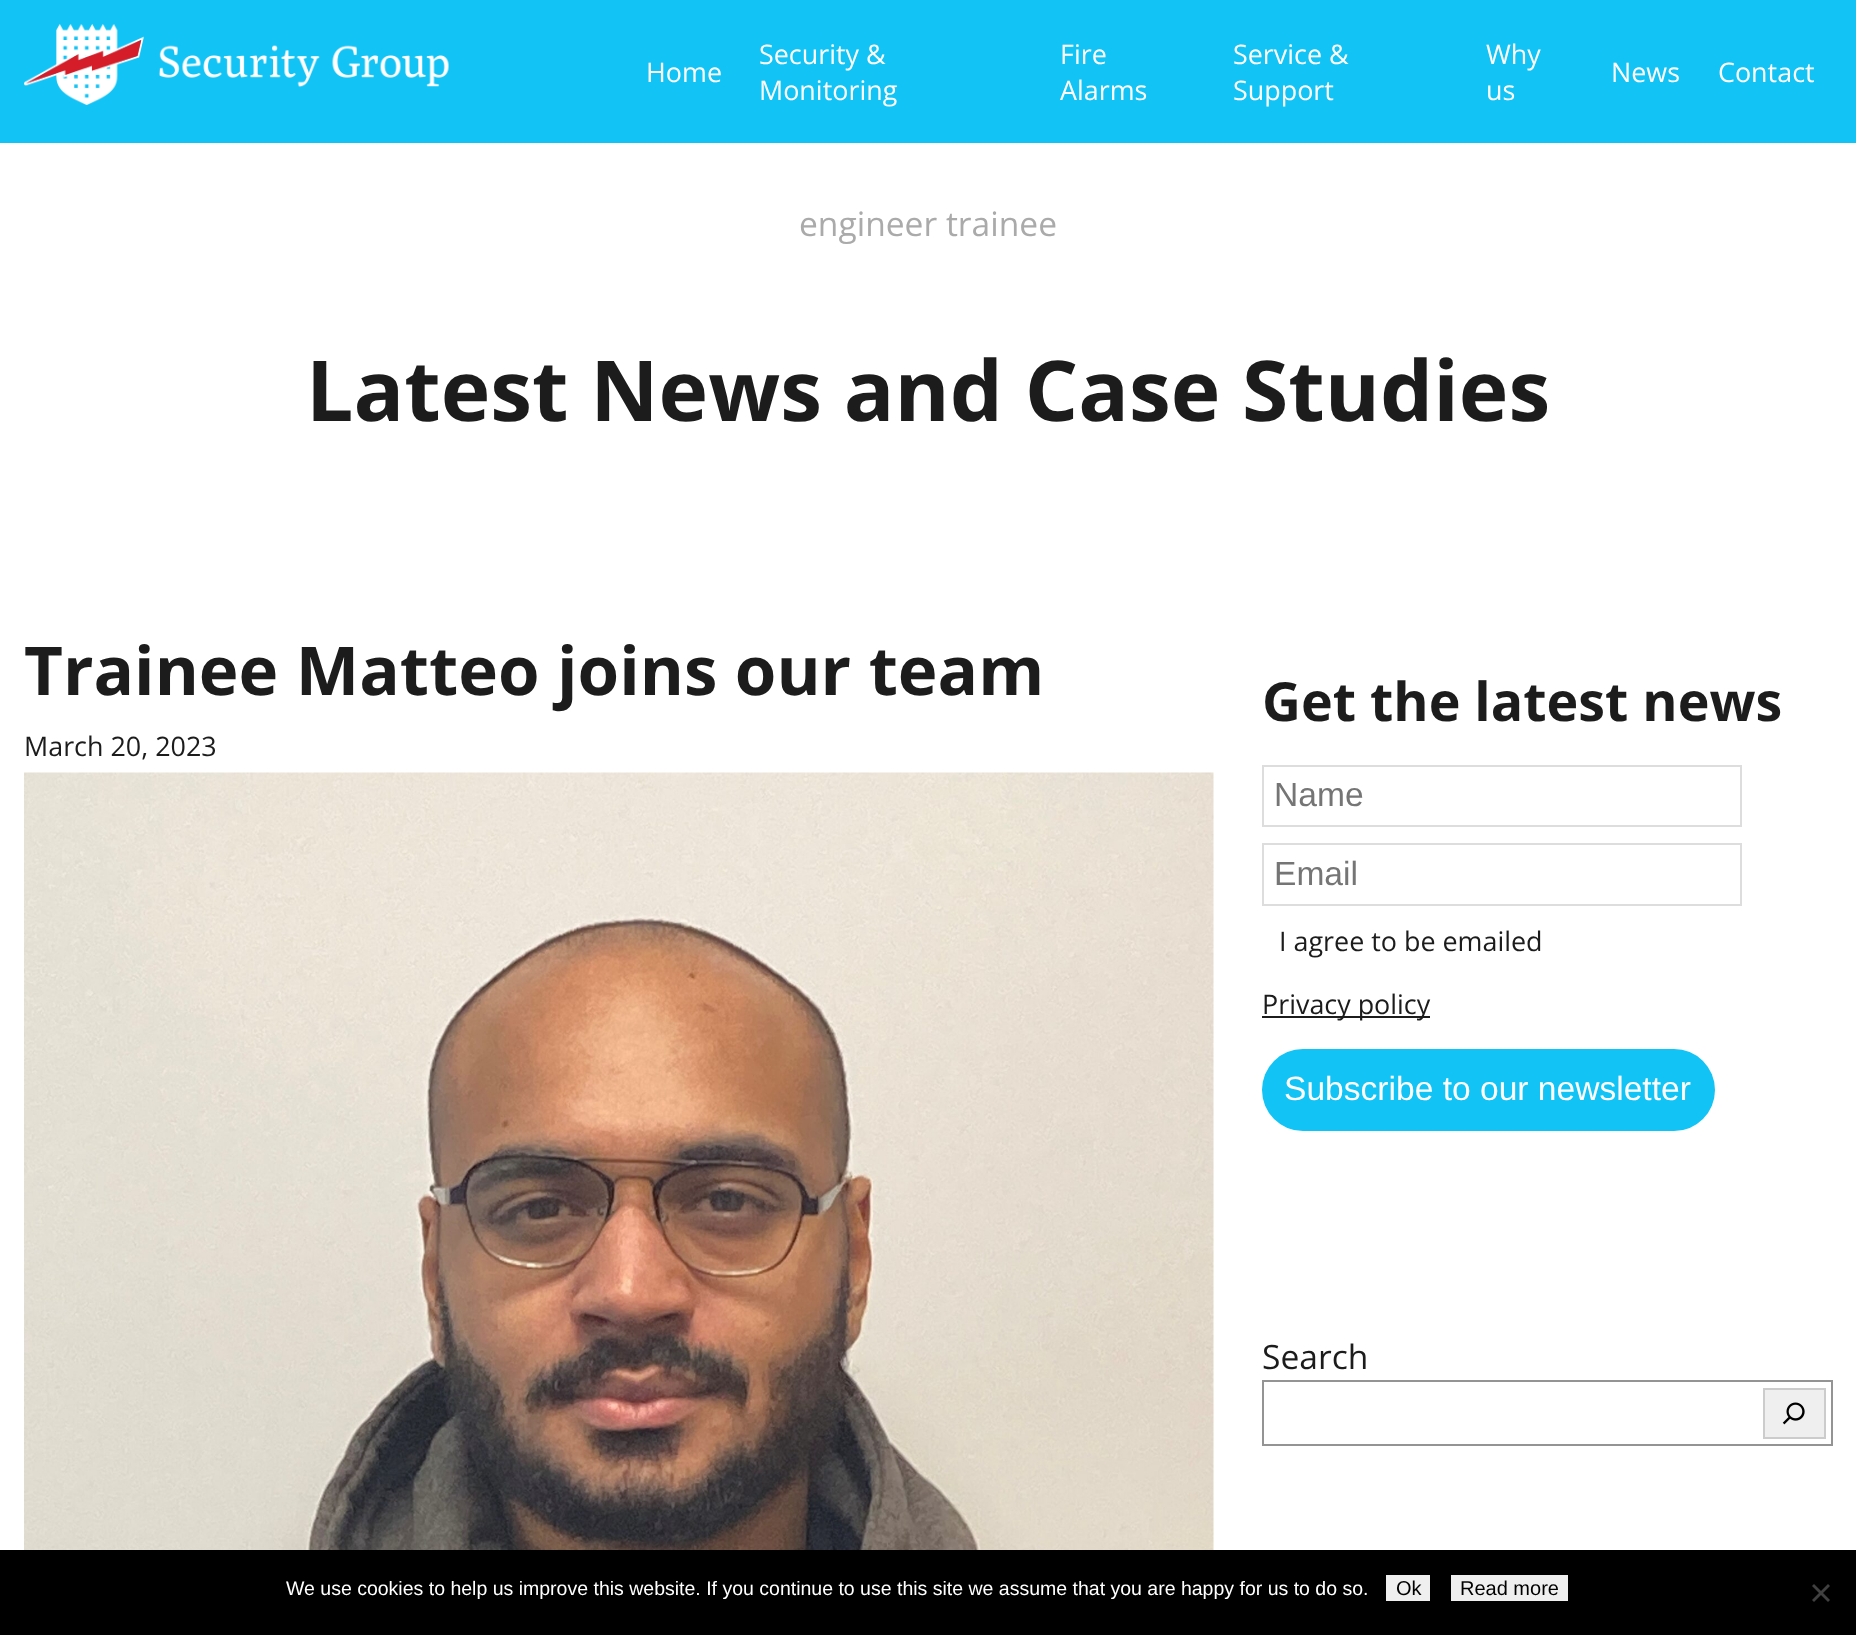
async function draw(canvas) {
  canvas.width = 1856
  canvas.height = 1635
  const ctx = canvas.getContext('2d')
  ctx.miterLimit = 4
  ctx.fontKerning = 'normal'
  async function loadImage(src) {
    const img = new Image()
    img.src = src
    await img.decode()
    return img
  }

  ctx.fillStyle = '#fff'
  ctx.fillRect(0, 0, 1856, 1635)
  ctx.fillStyle = '#12c3f5'
  ctx.fillRect(0, 0, 1856, 143)
  ctx.drawImage(await loadImage('image0.png'), 24, 24, 425, 81)
  ctx.font = '26.9px Open Sans'
  ctx.fillStyle = '#fff'
  ctx.fillText('Home', 646, 82)
  ctx.fillText('Security &', 759, 64)
  ctx.fillText('Monitoring', 759, 100)
  ctx.fillText('Fire', 1060, 64)
  ctx.fillText('Alarms', 1060, 100)
  ctx.fillText('Service &', 1233, 64)
  ctx.fillText('Support', 1233, 100)
  ctx.fillText('Why', 1486, 64)
  ctx.fillText('us', 1486, 100)
  ctx.fillText('News', 1611, 82)
  ctx.fillText('Contact', 1718, 82)
  ctx.font = '33.6px Open Sans'
  ctx.fillStyle = '#aaa'
  ctx.fillText('engineer trainee', 799, 236)
  ctx.font = 'bold 84px Open Sans'
  ctx.fillStyle = '#1c1c1c'
  ctx.fillText('Latest News and Case Studies', 306, 421)
  ctx.font = 'bold 67.25px Open Sans'
  ctx.fillText('Trainee Matteo joins our team', 24, 695)
  ctx.font = '26.9px Open Sans'
  ctx.fillText('March 20, 2023', 24, 756)
  ctx.drawImage(await loadImage('image1.png'), 24, 772, 1190, 778)
  ctx.font = 'bold 53.75px Open Sans'
  ctx.fillText('Get the latest news', 1262, 721)
  ctx.strokeStyle = '#ddd'
  ctx.lineWidth = 2
  ctx.strokeRect(1263, 766, 478, 60)
  ctx.font = '33.6px Liberation Sans'
  ctx.fillStyle = '#757575'
  ctx.fillText('Name', 1274, 806)
  ctx.strokeRect(1263, 844, 478, 61)
  ctx.fillText('Email', 1274, 885)
  ctx.font = '26.9px Open Sans'
  ctx.fillStyle = '#1c1c1c'
  ctx.fillText('I agree to be emailed', 1279, 951)
  ctx.fillRect(1262, 1016, 168, 2)
  ctx.fillText('Privacy policy', 1262, 1014)
  ctx.fillStyle = '#12c3f5'
  ctx.beginPath()
  ctx.roundRect(1262, 1049, 453, 82, 41)
  ctx.fill()
  ctx.font = '33.6px Liberation Sans'
  ctx.fillStyle = '#fff'
  ctx.fillText('Subscribe to our newsletter', 1284, 1100)
  ctx.font = '33.6px Open Sans'
  ctx.fillStyle = '#1c1c1c'
  ctx.fillText('Search', 1262, 1369)
  ctx.strokeStyle = '#949494'
  ctx.strokeRect(1263, 1381, 569, 64)
  ctx.fillStyle = '#efefef'
  ctx.beginPath()
  ctx.rect(1764, 1389, 61, 49)
  ctx.fill()
  ctx.strokeStyle = '#ccc'
  ctx.stroke()
  ctx.drawImage(await loadImage('image2.png'), 1782, 1402, 23, 23)
  ctx.fillStyle = '#000'
  ctx.fillRect(0, 1550, 1856, 85)
  ctx.font = '19.5px Liberation Sans'
  ctx.fillStyle = '#fff'
  ctx.fillText('We use cookies to help us improve this website. If you continue to use this site we assume that you are happy for us to do so.', 286, 1595)
  ctx.fillStyle = '#efefef'
  ctx.fillRect(1386, 1575, 44, 26)
  ctx.font = '20px Liberation Sans'
  ctx.fillStyle = '#000'
  ctx.fillText('Ok', 1396, 1595)
  ctx.fillStyle = '#efefef'
  ctx.fillRect(1451, 1575, 117, 26)
  ctx.fillStyle = '#000'
  ctx.fillText('Read more', 1460, 1595)
  ctx.fillStyle = '#404040'
  ctx.beginPath()
  ctx.moveTo(1828, 1584)
  ctx.lineTo(1830, 1586)
  ctx.lineTo(1814, 1602)
  ctx.lineTo(1812, 1600)
  ctx.closePath()
  ctx.fill()
  ctx.beginPath()
  ctx.moveTo(1812, 1586)
  ctx.lineTo(1814, 1584)
  ctx.lineTo(1830, 1600)
  ctx.lineTo(1828, 1602)
  ctx.closePath()
  ctx.fill()
}

draw(document.querySelector('canvas'))
